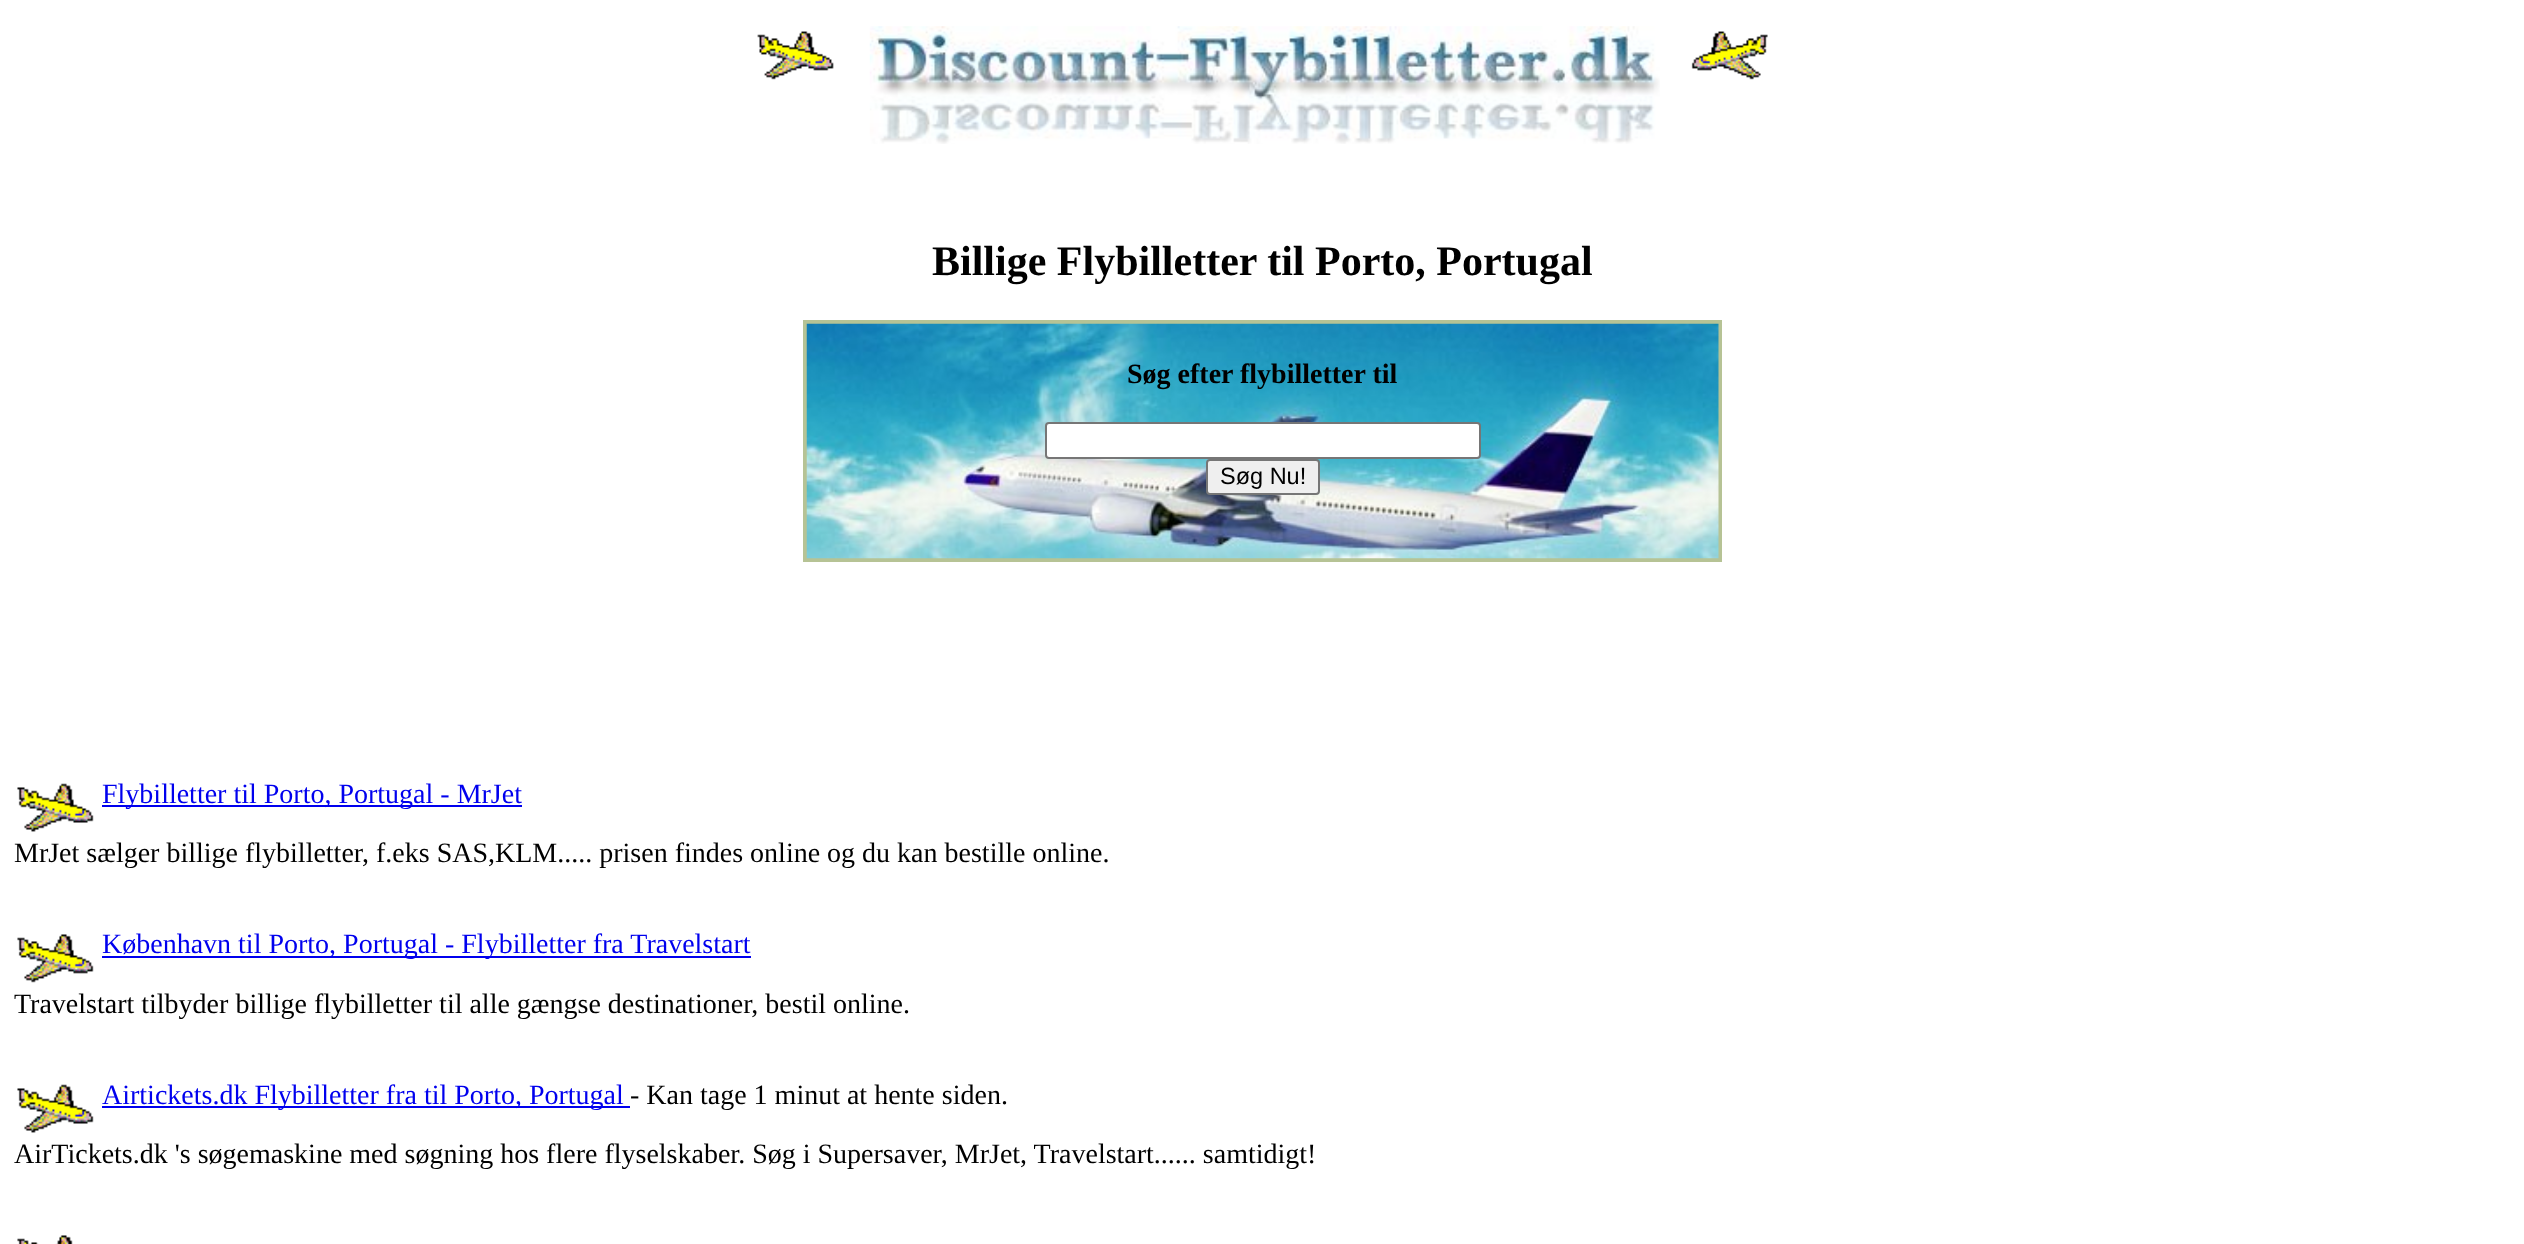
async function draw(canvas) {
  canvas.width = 2524
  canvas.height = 1244
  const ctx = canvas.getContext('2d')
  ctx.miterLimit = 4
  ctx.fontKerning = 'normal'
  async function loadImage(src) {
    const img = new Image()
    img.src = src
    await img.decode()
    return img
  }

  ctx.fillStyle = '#fff'
  ctx.fillRect(0, 0, 2524, 1244)
  ctx.drawImage(await loadImage('image0.png'), 757, 31, 77, 49)
  ctx.drawImage(await loadImage('image1.png'), 869, 26, 791, 118)
  ctx.drawImage(await loadImage('image2.png'), 1691, 31, 77, 49)
  ctx.font = 'bold 42px Liberation Serif'
  ctx.fillStyle = '#000'
  ctx.fillText('Billige Flybilletter til Porto, Portugal', 932, 275)
  ctx.fillStyle = '#b6c395'
  ctx.fillRect(803, 320, 919, 242)
  ctx.drawImage(await loadImage('image3.png'), 806, 323, 913, 236)
  ctx.font = 'bold 28px Liberation Serif'
  ctx.fillStyle = '#000'
  ctx.fillText('Søg efter flybilletter til', 1127, 383)
  ctx.fillStyle = '#fff'
  ctx.beginPath()
  ctx.roundRect(1046, 423, 434, 35, 3)
  ctx.fill()
  ctx.strokeStyle = '#767676'
  ctx.lineWidth = 2
  ctx.stroke()
  ctx.fillStyle = '#efefef'
  ctx.beginPath()
  ctx.roundRect(1207, 460, 112, 34, 3)
  ctx.fill()
  ctx.stroke()
  ctx.font = '23.5px Liberation Sans'
  ctx.fillStyle = '#000'
  ctx.fillText('Søg Nu!', 1220, 484)
  ctx.drawImage(await loadImage('image4.png'), 17, 783, 77, 49)
  ctx.fillStyle = '#00e'
  ctx.fillRect(102, 805, 420, 2)
  ctx.font = '28px Liberation Serif'
  ctx.fillText('Flybilletter til Porto, Portugal - MrJet', 102, 803)
  ctx.fillStyle = '#000'
  ctx.fillText('MrJet sælger billige flybilletter, f.eks SAS,KLM..... prisen findes online og du kan bestille online.', 14, 862)
  ctx.drawImage(await loadImage('image5.png'), 17, 934, 77, 49)
  ctx.fillStyle = '#00e'
  ctx.fillRect(102, 956, 649, 2)
  ctx.fillText('København til Porto, Portugal - Flybilletter fra Travelstart', 102, 953)
  ctx.fillStyle = '#000'
  ctx.fillText('Travelstart tilbyder billige flybilletter til alle gængse destinationer, bestil online.', 14, 1013)
  ctx.drawImage(await loadImage('image4.png'), 17, 1084, 77, 49)
  ctx.fillStyle = '#00e'
  ctx.fillRect(102, 1106, 528, 2)
  ctx.fillText('Airtickets.dk Flybilletter fra til Porto, Portugal', 102, 1104)
  ctx.fillStyle = '#000'
  ctx.fillText('- Kan tage 1 minut at hente siden.', 630, 1104)
  ctx.fillText('AirTickets.dk \'s søgemaskine med søgning hos flere flyselskaber. Søg i Supersaver, MrJet, Travelstart...... samtidigt!', 14, 1163)
  ctx.drawImage(await loadImage('image6.png'), 17, 1235, 56, 9)
}

draw(document.querySelector('canvas'))
